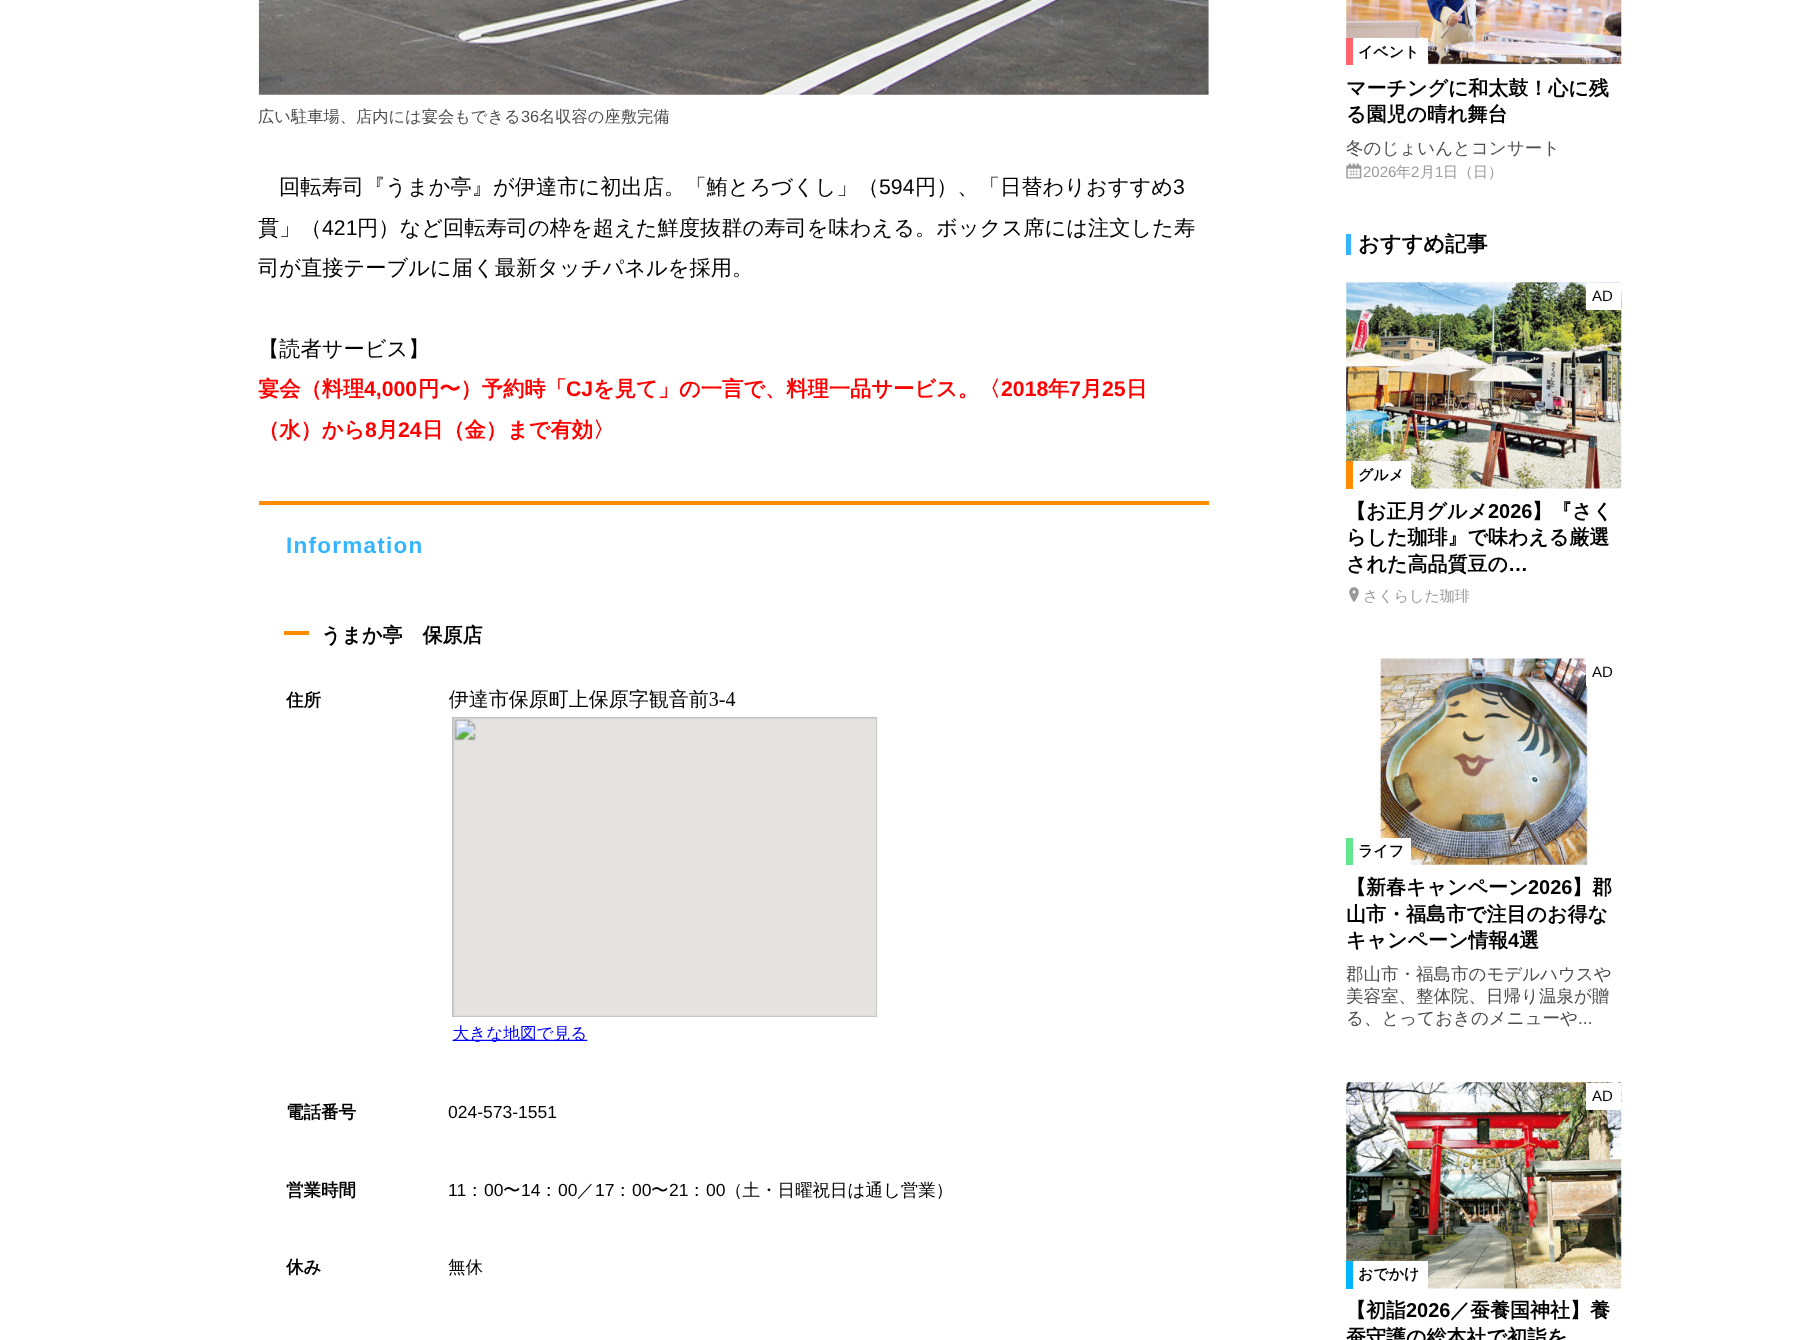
async function draw(canvas) {
  canvas.width = 1816
  canvas.height = 1340
  const ctx = canvas.getContext('2d')
  ctx.miterLimit = 4
  ctx.fontKerning = 'normal'
  async function loadImage(src) {
    const img = new Image()
    img.src = src
    await img.decode()
    return img
  }

  ctx.fillStyle = '#fff'
  ctx.fillRect(0, 0, 1816, 1340)
  ctx.drawImage(await loadImage('image0.png'), 258, 0, 951, 95)
  ctx.font = '500 16.25px WenQuanYi Zen Hei'
  ctx.fillStyle = '#4d4d4d'
  ctx.fillText('広い駐車場、店内には宴会もできる', 258, 122)
  ctx.font = '16.25px Liberation Sans'
  ctx.fillText('36', 521, 122)
  ctx.font = '500 16.25px WenQuanYi Zen Hei'
  ctx.fillText('名収容の座敷完備', 539, 122)
  ctx.font = '500 21.25px WenQuanYi Zen Hei'
  ctx.fillStyle = '#000'
  ctx.fillText('回転寿司『うまか亭』が伊達市に初出店。「鮪とろづくし」（', 279, 194)
  ctx.font = '21.25px Liberation Sans'
  ctx.fillText('594', 879, 194)
  ctx.font = '500 21.25px WenQuanYi Zen Hei'
  ctx.fillText('円）、「日替わりおすすめ', 915, 194)
  ctx.font = '21.25px Liberation Sans'
  ctx.fillText('3', 1173, 194)
  ctx.font = '500 21.25px WenQuanYi Zen Hei'
  ctx.fillText('貫」（', 258, 235)
  ctx.font = '21.25px Liberation Sans'
  ctx.fillText('421', 322, 235)
  ctx.font = '500 21.25px WenQuanYi Zen Hei'
  ctx.fillText('円）など回転寿司の枠を超えた鮮度抜群の寿司を味わえる。ボックス席には注文した寿', 357, 235)
  ctx.fillText('司が直接テーブルに届く最新タッチパネルを採用。', 258, 275)
  ctx.fillText('【読者サービス】', 258, 356)
  ctx.font = 'bold 21.25px WenQuanYi Zen Hei'
  ctx.fillStyle = '#f00'
  ctx.fillText('宴会（料理', 258, 396)
  ctx.font = 'bold 21.25px Liberation Sans'
  ctx.fillText('4,000', 364, 396)
  ctx.font = 'bold 21.25px WenQuanYi Zen Hei'
  ctx.fillText('円〜）予約時「', 418, 396)
  ctx.font = 'bold 21.25px Liberation Sans'
  ctx.fillText('CJ', 566, 396)
  ctx.font = 'bold 21.25px WenQuanYi Zen Hei'
  ctx.fillText('を見て」の一言で、料理一品サービス。〈', 593, 396)
  ctx.font = 'bold 21.25px Liberation Sans'
  ctx.fillText('2018', 1001, 396)
  ctx.font = 'bold 21.25px WenQuanYi Zen Hei'
  ctx.fillText('年', 1048, 396)
  ctx.font = 'bold 21.25px Liberation Sans'
  ctx.fillText('7', 1069, 396)
  ctx.font = 'bold 21.25px WenQuanYi Zen Hei'
  ctx.fillText('月', 1081, 396)
  ctx.font = 'bold 21.25px Liberation Sans'
  ctx.fillText('25', 1102, 396)
  ctx.font = 'bold 21.25px WenQuanYi Zen Hei'
  ctx.fillText('日', 1126, 396)
  ctx.fillText('（水）から', 258, 437)
  ctx.font = 'bold 21.25px Liberation Sans'
  ctx.fillText('8', 365, 437)
  ctx.font = 'bold 21.25px WenQuanYi Zen Hei'
  ctx.fillText('月', 377, 437)
  ctx.font = 'bold 21.25px Liberation Sans'
  ctx.fillText('24', 398, 437)
  ctx.font = 'bold 21.25px WenQuanYi Zen Hei'
  ctx.fillText('日（金）まで有効〉', 422, 437)
  ctx.fillStyle = '#ff8c00'
  ctx.fillRect(259, 501, 950, 4)
  ctx.letterSpacing = '1.25px'
  ctx.font = 'bold 22.5px Liberation Sans'
  ctx.fillStyle = '#35b5ff'
  ctx.fillText('Information', 286, 553)
  ctx.fillStyle = '#ff8c00'
  ctx.fillRect(284, 631, 25, 4)
  ctx.letterSpacing = '0px'
  ctx.font = 'bold 20px WenQuanYi Zen Hei'
  ctx.fillStyle = '#000'
  ctx.fillText('うまか亭　保原店', 321, 642)
  ctx.font = 'bold 17.5px WenQuanYi Zen Hei'
  ctx.fillText('住所', 286, 706)
  ctx.drawImage(await loadImage('image1.png'), 449, 689, 429, 353)
  ctx.fillText('電話番号', 286, 1118)
  ctx.font = '17.5px Liberation Sans'
  ctx.fillText('024-573-1551', 448, 1118)
  ctx.font = 'bold 17.5px WenQuanYi Zen Hei'
  ctx.fillText('営業時間', 286, 1196)
  ctx.font = '17.5px Liberation Sans'
  ctx.fillText('11', 448, 1196)
  ctx.font = '500 17.5px WenQuanYi Zen Hei'
  ctx.fillText('：', 466, 1196)
  ctx.font = '17.5px Liberation Sans'
  ctx.fillText('00', 484, 1196)
  ctx.font = '500 17.5px WenQuanYi Zen Hei'
  ctx.fillText('〜', 503, 1196)
  ctx.font = '17.5px Liberation Sans'
  ctx.fillText('14', 521, 1196)
  ctx.font = '500 17.5px WenQuanYi Zen Hei'
  ctx.fillText('：', 540, 1196)
  ctx.font = '17.5px Liberation Sans'
  ctx.fillText('00', 558, 1196)
  ctx.font = '500 17.5px WenQuanYi Zen Hei'
  ctx.fillText('／', 577, 1196)
  ctx.font = '17.5px Liberation Sans'
  ctx.fillText('17', 595, 1196)
  ctx.font = '500 17.5px WenQuanYi Zen Hei'
  ctx.fillText('：', 614, 1196)
  ctx.font = '17.5px Liberation Sans'
  ctx.fillText('00', 632, 1196)
  ctx.font = '500 17.5px WenQuanYi Zen Hei'
  ctx.fillText('〜', 651, 1196)
  ctx.font = '17.5px Liberation Sans'
  ctx.fillText('21', 669, 1196)
  ctx.font = '500 17.5px WenQuanYi Zen Hei'
  ctx.fillText('：', 688, 1196)
  ctx.font = '17.5px Liberation Sans'
  ctx.fillText('00', 706, 1196)
  ctx.font = '500 17.5px WenQuanYi Zen Hei'
  ctx.fillText('（土・日曜祝日は通し営業）', 725, 1196)
  ctx.font = 'bold 17.5px WenQuanYi Zen Hei'
  ctx.fillText('休み', 286, 1273)
  ctx.font = '500 17.5px WenQuanYi Zen Hei'
  ctx.fillText('無休', 448, 1273)
  ctx.drawImage(await loadImage('image2.png'), 1346, 0, 276, 65)
  ctx.fillStyle = '#fff'
  ctx.fillRect(1353, 38, 75, 27)
  ctx.fillStyle = '#ff646e'
  ctx.fillRect(1346, 38, 7, 27)
  ctx.font = 'bold 15px WenQuanYi Zen Hei'
  ctx.fillStyle = '#000'
  ctx.fillText('イベント', 1358, 57)
  ctx.font = 'bold 20px WenQuanYi Zen Hei'
  ctx.fillText('マーチングに和太鼓！心に残', 1346, 95)
  ctx.fillText('る園児の晴れ舞台', 1346, 121)
  ctx.font = '500 17.5px WenQuanYi Zen Hei'
  ctx.fillStyle = '#4d4d4d'
  ctx.fillText('冬のじょいんとコンサート', 1346, 154)
  ctx.drawImage(await loadImage('image3.png'), 1346, 163, 16, 16)
  ctx.font = '15px Liberation Sans'
  ctx.fillStyle = '#999'
  ctx.fillText('2026', 1363, 177)
  ctx.font = '500 15px WenQuanYi Zen Hei'
  ctx.fillText('年', 1396, 177)
  ctx.font = '15px Liberation Sans'
  ctx.fillText('2', 1411, 177)
  ctx.font = '500 15px WenQuanYi Zen Hei'
  ctx.fillText('月', 1420, 177)
  ctx.font = '15px Liberation Sans'
  ctx.fillText('1', 1435, 177)
  ctx.font = '500 15px WenQuanYi Zen Hei'
  ctx.fillText('日（日）', 1443, 177)
  ctx.fillStyle = '#35b5ff'
  ctx.fillRect(1346, 234, 5, 21)
  ctx.font = 'bold 21.25px WenQuanYi Zen Hei'
  ctx.fillStyle = '#000'
  ctx.fillText('おすすめ記事', 1358, 251)
  ctx.drawImage(await loadImage('image4.png'), 1346, 282, 276, 207)
  ctx.fillStyle = '#fff'
  ctx.fillRect(1586, 283, 35, 27)
  ctx.font = '15px Liberation Sans'
  ctx.fillStyle = '#000'
  ctx.fillText('AD', 1592, 301)
  ctx.fillStyle = '#fff'
  ctx.fillRect(1353, 461, 58, 28)
  ctx.fillStyle = '#ff8c00'
  ctx.fillRect(1346, 461, 7, 28)
  ctx.font = 'bold 15px WenQuanYi Zen Hei'
  ctx.fillStyle = '#000'
  ctx.fillText('グルメ', 1358, 480)
  ctx.font = 'bold 20px WenQuanYi Zen Hei'
  ctx.fillText('【お正月グルメ', 1346, 518)
  ctx.font = 'bold 20px Liberation Sans'
  ctx.fillText('2026', 1488, 518)
  ctx.font = 'bold 20px WenQuanYi Zen Hei'
  ctx.fillText('】『さく', 1532, 518)
  ctx.fillText('らした珈琲』で味わえる厳選', 1346, 544)
  ctx.fillText('された高品質豆の', 1346, 571)
  ctx.font = 'bold 20px Liberation Sans'
  ctx.fillText('…', 1508, 571)
  ctx.drawImage(await loadImage('image5.png'), 1349, 587, 10, 15)
  ctx.font = '500 15px WenQuanYi Zen Hei'
  ctx.fillStyle = '#999'
  ctx.fillText('さくらした珈琲', 1363, 601)
  ctx.drawImage(await loadImage('image6.png'), 1377, 658, 215, 207)
  ctx.fillStyle = '#fff'
  ctx.fillRect(1586, 659, 6, 27)
  ctx.font = '15px Liberation Sans'
  ctx.fillStyle = '#000'
  ctx.fillText('AD', 1592, 677)
  ctx.fillStyle = '#fff'
  ctx.fillRect(1377, 838, 34, 27)
  ctx.fillStyle = '#64e68c'
  ctx.fillRect(1346, 838, 7, 27)
  ctx.font = 'bold 15px WenQuanYi Zen Hei'
  ctx.fillStyle = '#000'
  ctx.fillText('ライフ', 1358, 856)
  ctx.font = 'bold 20px WenQuanYi Zen Hei'
  ctx.fillText('【新春キャンペーン', 1346, 894)
  ctx.font = 'bold 20px Liberation Sans'
  ctx.fillText('2026', 1528, 894)
  ctx.font = 'bold 20px WenQuanYi Zen Hei'
  ctx.fillText('】郡', 1572, 894)
  ctx.fillText('山市・福島市で注目のお得な', 1346, 921)
  ctx.fillText('キャンペーン情報', 1346, 947)
  ctx.font = 'bold 20px Liberation Sans'
  ctx.fillText('4', 1508, 947)
  ctx.font = 'bold 20px WenQuanYi Zen Hei'
  ctx.fillText('選', 1519, 947)
  ctx.font = '500 17.5px WenQuanYi Zen Hei'
  ctx.fillStyle = '#4d4d4d'
  ctx.fillText('郡山市・福島市のモデルハウスや', 1346, 980)
  ctx.fillText('美容室、整体院、日帰り温泉が贈', 1346, 1002)
  ctx.fillText('る、とっておきのメニューや', 1346, 1024)
  ctx.font = '17.5px Liberation Sans'
  ctx.fillText('...', 1578, 1024)
  ctx.drawImage(await loadImage('image7.png'), 1346, 1082, 276, 207)
  ctx.fillStyle = '#fff'
  ctx.fillRect(1586, 1083, 35, 27)
  ctx.font = '15px Liberation Sans'
  ctx.fillStyle = '#000'
  ctx.fillText('AD', 1592, 1101)
  ctx.fillStyle = '#fff'
  ctx.fillRect(1353, 1261, 75, 28)
  ctx.fillStyle = '#00b4ff'
  ctx.fillRect(1346, 1261, 7, 28)
  ctx.font = 'bold 15px WenQuanYi Zen Hei'
  ctx.fillStyle = '#000'
  ctx.fillText('おでかけ', 1358, 1279)
  ctx.font = 'bold 20px WenQuanYi Zen Hei'
  ctx.fillText('【初詣', 1346, 1317)
  ctx.font = 'bold 20px Liberation Sans'
  ctx.fillText('2026', 1406, 1317)
  ctx.font = 'bold 20px WenQuanYi Zen Hei'
  ctx.fillText('／蚕養国神社】養', 1450, 1317)
  ctx.fillText('蚕守護の総本社で初詣を', 1346, 1344)
}

draw(document.querySelector('canvas'))
